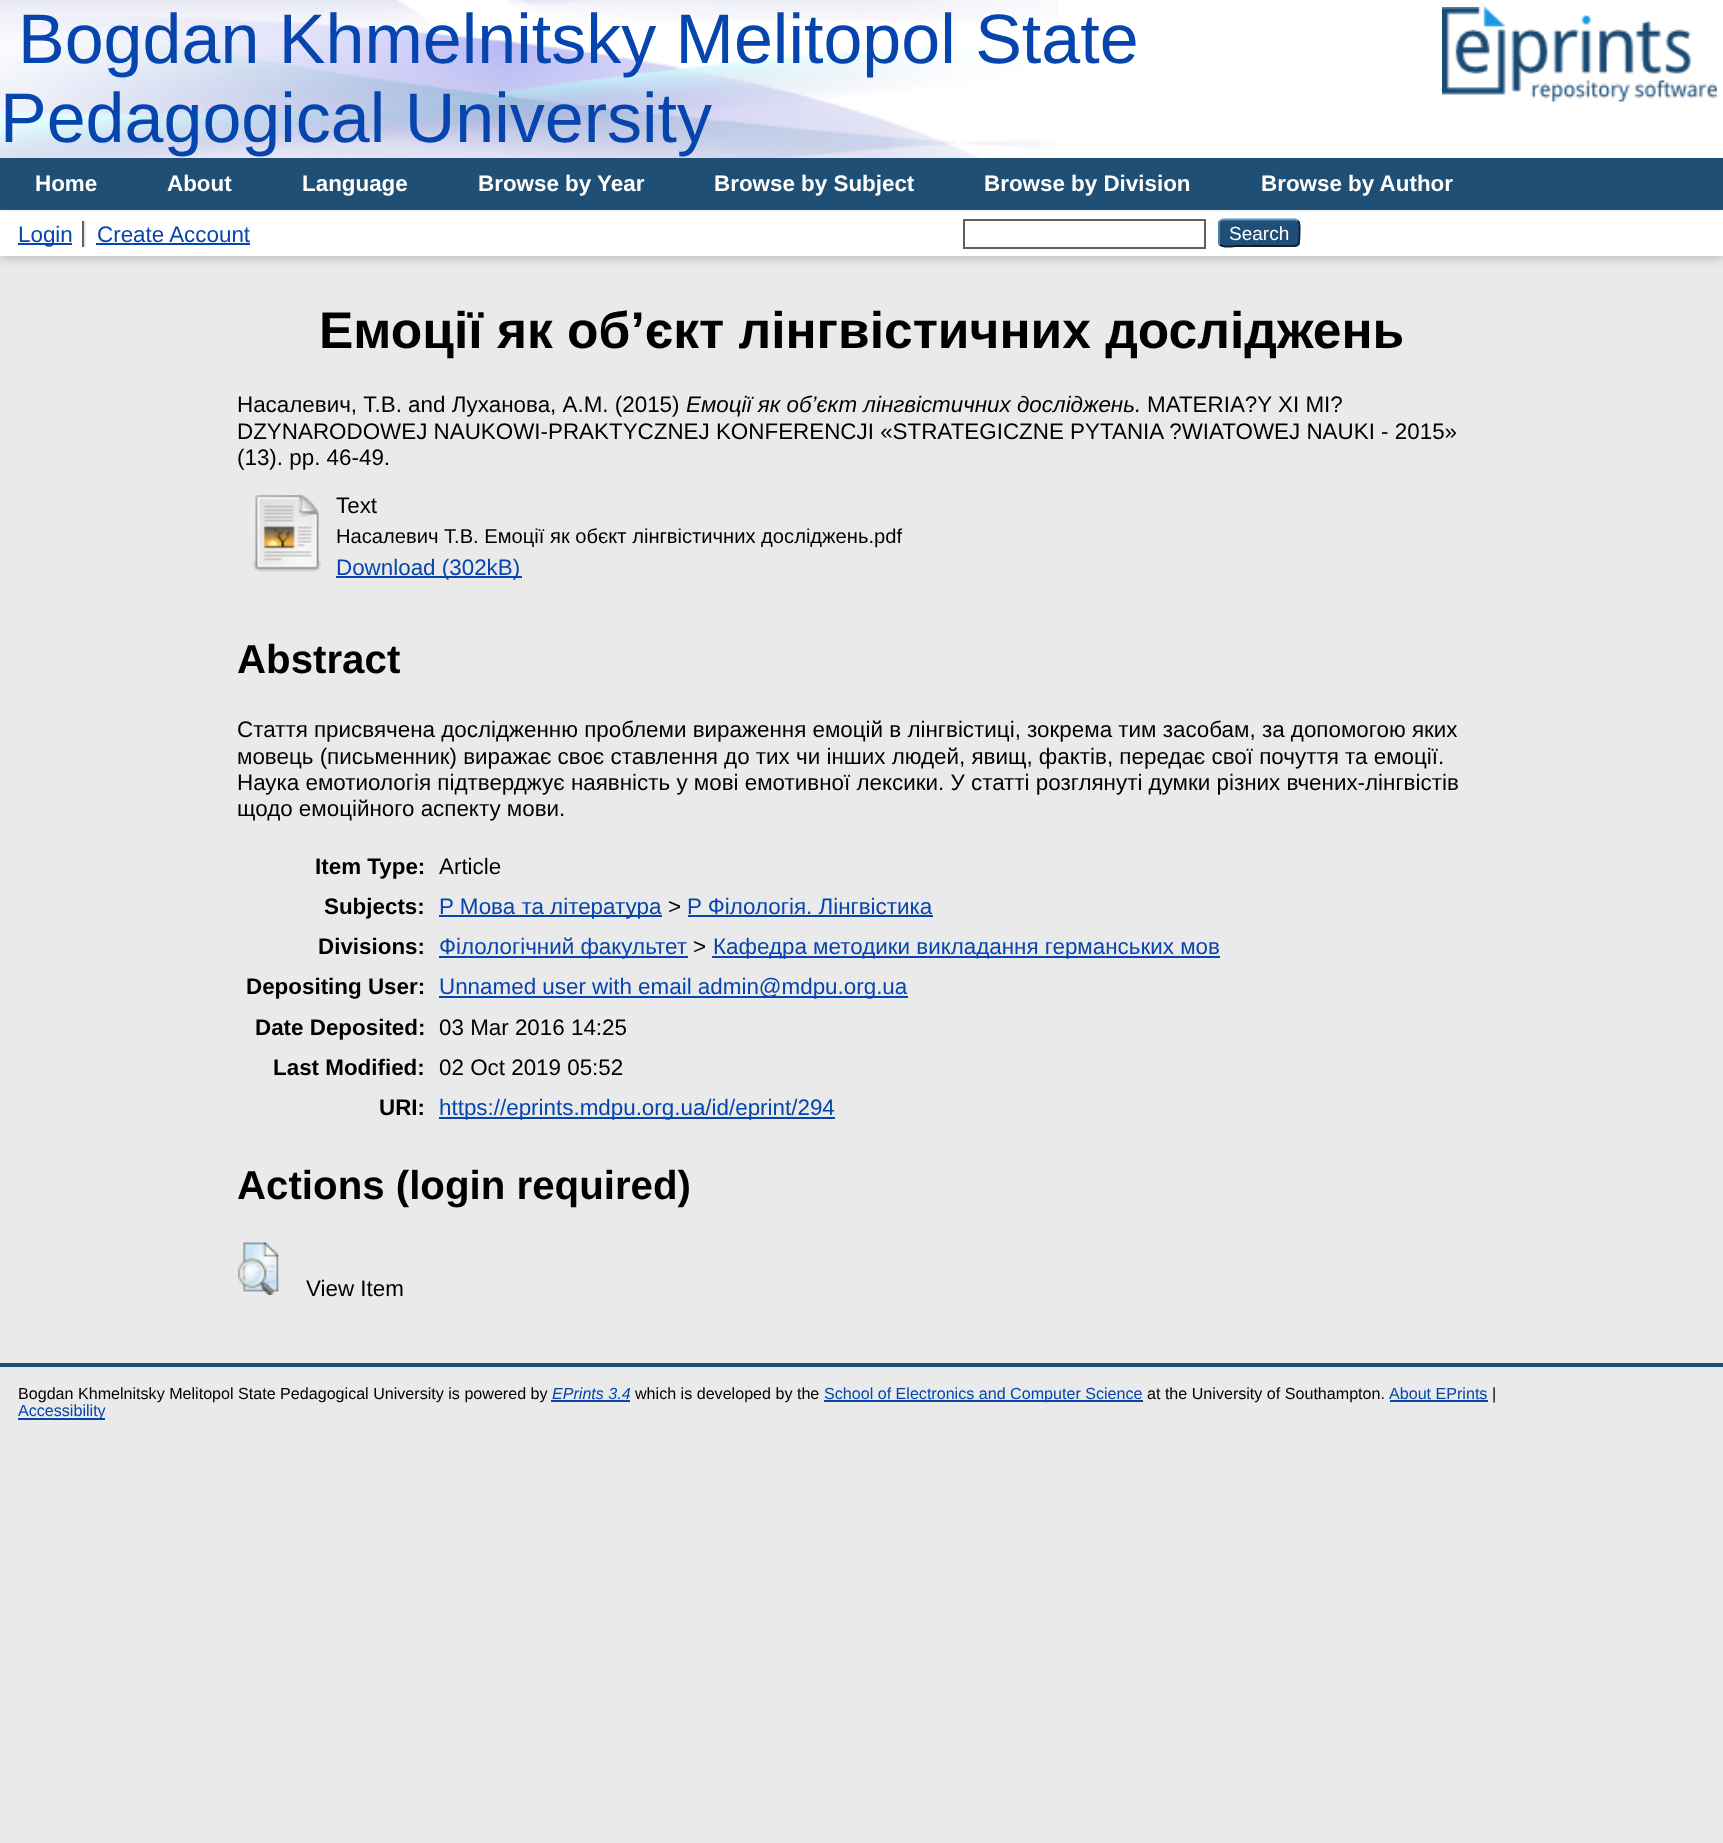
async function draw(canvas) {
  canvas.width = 1723
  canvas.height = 1843
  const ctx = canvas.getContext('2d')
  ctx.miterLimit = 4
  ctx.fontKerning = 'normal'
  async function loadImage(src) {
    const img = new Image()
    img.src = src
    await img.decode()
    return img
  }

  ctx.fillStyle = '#eaeaea'
  ctx.fillRect(0, 0, 1723, 1843)
  ctx.fillStyle = '#fff'
  ctx.fillRect(0, 0, 1723, 158)
  ctx.drawImage(await loadImage('image0.png'), 0, 0, 1058, 158)
  ctx.font = '70px Liberation Sans'
  ctx.fillStyle = '#0645ad'
  ctx.fillText('Bogdan Khmelnitsky Melitopol State', 18, 63)
  ctx.fillText('Pedagogical University', 0, 142)
  ctx.drawImage(await loadImage('image1.png'), 1442, 7, 275, 95)
  ctx.fillStyle = '#204f76'
  ctx.fillRect(0, 158, 1723, 52)
  ctx.fillStyle = '#fff'
  ctx.fillRect(0, 210, 1723, 2)
  ctx.font = 'bold 22.4px Liberation Sans'
  ctx.fillText('Home', 35, 191)
  ctx.fillText('About', 167, 191)
  ctx.fillText('Language', 302, 191)
  ctx.fillText('Browse by Year', 478, 191)
  ctx.fillText('Browse by Subject', 714, 191)
  ctx.fillText('Browse by Division', 984, 191)
  ctx.fillText('Browse by Author', 1261, 191)
  ctx.fillStyle = '#6464644d'
  ctx.filter = 'blur(5px)'
  ctx.beginPath()
  ctx.rect(0, 215, 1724, 44)
  ctx.fill()
  ctx.filter = 'none'
  ctx.fillStyle = '#fff'
  ctx.fillRect(0, 212, 1723, 44)
  ctx.fillStyle = '#606060'
  ctx.fillRect(82, 221, 2, 26)
  ctx.fillStyle = '#0645ad'
  ctx.fillRect(18, 243, 54, 2)
  ctx.font = '22.4px Liberation Sans'
  ctx.fillText('Login', 18, 242)
  ctx.fillStyle = '#e8e8e8'
  ctx.fillRect(84, 221, 2, 26)
  ctx.fillStyle = '#0645ad'
  ctx.fillText('Create Account', 97, 242)
  ctx.fillRect(96, 243, 154, 2)
  ctx.strokeStyle = '#606060'
  ctx.lineWidth = 2
  ctx.strokeRect(964, 220, 241, 28)
  ctx.fillStyle = '#1f4f76'
  ctx.beginPath()
  ctx.roundRect(1218, 219, 82, 28, 5)
  ctx.fill()
  ctx.beginPath()
  ctx.moveTo(1220, 221)
  ctx.lineTo(1223, 219.5)
  ctx.lineTo(1295.5, 219.5)
  ctx.lineTo(1298, 221)
  ctx.strokeStyle = '#5b97c7'
  ctx.lineWidth = 1.8
  ctx.stroke()
  ctx.beginPath()
  ctx.moveTo(1298, 221)
  ctx.bezierCurveTo(1300.5, 223.5, 1299.5, 229.5, 1299.5, 233)
  ctx.bezierCurveTo(1299.5, 248, 1300, 246, 1283, 246)
  ctx.lineTo(1235, 246)
  ctx.bezierCurveTo(1235, 246, 1223.5, 248, 1220, 244.5)
  ctx.strokeStyle = '#0d2131'
  ctx.stroke()
  ctx.beginPath()
  ctx.moveTo(1220, 244.5)
  ctx.bezierCurveTo(1219.5, 244, 1219, 242.5, 1219, 241.5)
  ctx.lineTo(1219, 224)
  ctx.bezierCurveTo(1219, 223, 1219.5, 221.5, 1220, 221)
  ctx.strokeStyle = '#5287b3'
  ctx.stroke()
  ctx.font = '19px Liberation Sans'
  ctx.fillStyle = '#fff'
  ctx.fillText('Search', 1229, 240)
  ctx.font = 'bold 51.5px Liberation Sans'
  ctx.fillStyle = '#000'
  ctx.fillText('Емоції як об’єкт лінгвістичних досліджень', 319, 348)
  ctx.font = '22.4px Liberation Sans'
  ctx.fillText('Насалевич, Т.В. and Луханова, А.М. (2015)', 237, 412)
  ctx.font = 'italic 22.4px Liberation Sans'
  ctx.fillText('Емоції як об’єкт лінгвістичних досліджень.', 686, 412)
  ctx.font = '22.4px Liberation Sans'
  ctx.fillText('MATERIA?Y XI MI?', 1147, 412)
  ctx.fillText('DZYNARODOWEJ NAUKOWI-PRAKTYCZNEJ KONFERENCJI «STRATEGICZNE PYTANIA ?WIATOWEJ NAUKI - 2015»', 237, 439)
  ctx.fillText('(13). pp. 46-49.', 237, 465)
  ctx.drawImage(await loadImage('image2.png'), 252, 495, 70, 77)
  ctx.fillText('Text', 336, 513)
  ctx.font = '20.15px Liberation Sans'
  ctx.fillText('Насалевич Т.В. Емоції як обєкт лінгвістичних досліджень.pdf', 336, 543)
  ctx.fillStyle = '#0645ad'
  ctx.fillRect(336, 576, 186, 2)
  ctx.font = '22.4px Liberation Sans'
  ctx.fillText('Download (302kB)', 336, 575)
  ctx.font = 'bold 40.25px Liberation Sans'
  ctx.fillStyle = '#000'
  ctx.fillText('Abstract', 237, 673)
  ctx.font = '22.4px Liberation Sans'
  ctx.fillText('Стаття присвячена дослідженню проблеми вираження емоцій в лінгвістиці, зокрема тим засобам, за допомогою яких', 237, 737)
  ctx.fillText('мовець (письменник) виражає своє ставлення до тих чи інших людей, явищ, фактів, передає свої почуття та емоції.', 237, 764)
  ctx.fillText('Наука емотиологія підтверджує наявність у мові емотивної лексики. У статті розглянуті думки різних вчених-лінгвістів', 237, 790)
  ctx.fillText('щодо емоційного аспекту мови.', 237, 816)
  ctx.font = 'bold 22.4px Liberation Sans'
  ctx.fillText('Item Type:', 315, 874)
  ctx.font = '22.4px Liberation Sans'
  ctx.fillText('Article', 439, 874)
  ctx.font = 'bold 22.4px Liberation Sans'
  ctx.fillText('Subjects:', 324, 914)
  ctx.fillStyle = '#0645ad'
  ctx.fillRect(439, 915, 223, 2)
  ctx.font = '22.4px Liberation Sans'
  ctx.fillText('P Мова та література', 439, 914)
  ctx.fillStyle = '#000'
  ctx.fillText('>', 668, 914)
  ctx.fillStyle = '#0645ad'
  ctx.fillText('P Філологія. Лінгвістика', 687, 914)
  ctx.fillRect(688, 915, 245, 2)
  ctx.font = 'bold 22.4px Liberation Sans'
  ctx.fillStyle = '#000'
  ctx.fillText('Divisions:', 318, 954)
  ctx.fillStyle = '#0645ad'
  ctx.fillRect(439, 956, 249, 2)
  ctx.font = '22.4px Liberation Sans'
  ctx.fillText('Філологічний факультет', 439, 954)
  ctx.fillStyle = '#000'
  ctx.fillText('>', 693, 954)
  ctx.fillStyle = '#0645ad'
  ctx.fillRect(712, 956, 508, 2)
  ctx.fillText('Кафедра методики викладання германських мов', 713, 954)
  ctx.font = 'bold 22.4px Liberation Sans'
  ctx.fillStyle = '#000'
  ctx.fillText('Depositing User:', 246, 994)
  ctx.fillStyle = '#0645ad'
  ctx.fillRect(439, 996, 469, 2)
  ctx.font = '22.4px Liberation Sans'
  ctx.fillText('Unnamed user with email admin@mdpu.org.ua', 439, 994)
  ctx.font = 'bold 22.4px Liberation Sans'
  ctx.fillStyle = '#000'
  ctx.fillText('Date Deposited:', 255, 1035)
  ctx.font = '22.4px Liberation Sans'
  ctx.fillText('03 Mar 2016 14:25', 439, 1035)
  ctx.font = 'bold 22.4px Liberation Sans'
  ctx.fillText('Last Modified:', 273, 1075)
  ctx.font = '22.4px Liberation Sans'
  ctx.fillText('02 Oct 2019 05:52', 439, 1075)
  ctx.font = 'bold 22.4px Liberation Sans'
  ctx.fillText('URI:', 379, 1115)
  ctx.fillStyle = '#0645ad'
  ctx.fillRect(439, 1117, 396, 2)
  ctx.font = '22.4px Liberation Sans'
  ctx.fillText('https://eprints.mdpu.org.ua/id/eprint/294', 439, 1115)
  ctx.font = 'bold 40.25px Liberation Sans'
  ctx.fillStyle = '#000'
  ctx.fillText('Actions (login required)', 237, 1199)
  ctx.drawImage(await loadImage('image3.png'), 238, 1242, 41, 53)
  ctx.font = '22.4px Liberation Sans'
  ctx.fillText('View Item', 306, 1296)
  ctx.fillStyle = '#204f76'
  ctx.fillRect(0, 1363, 1723, 4)
  ctx.font = '16.1px Liberation Sans'
  ctx.fillStyle = '#000'
  ctx.fillText('Bogdan Khmelnitsky Melitopol State Pedagogical University is powered by', 18, 1399)
  ctx.fillStyle = '#0645ad'
  ctx.fillRect(551, 1400, 79, 2)
  ctx.font = 'italic 16.1px Liberation Sans'
  ctx.fillText('EPrints 3.4', 552, 1399)
  ctx.font = '16.1px Liberation Sans'
  ctx.fillStyle = '#000'
  ctx.fillText('which is developed by the', 635, 1399)
  ctx.fillStyle = '#0645ad'
  ctx.fillRect(824, 1400, 319, 2)
  ctx.fillText('School of Electronics and Computer Science', 824, 1399)
  ctx.fillStyle = '#000'
  ctx.fillText('at the University of Southampton.', 1147, 1399)
  ctx.fillStyle = '#0645ad'
  ctx.fillText('About EPrints', 1389, 1399)
  ctx.fillRect(1390, 1400, 98, 2)
  ctx.fillStyle = '#000'
  ctx.fillText('|', 1492, 1399)
  ctx.fillStyle = '#0645ad'
  ctx.fillRect(18, 1418, 87, 2)
  ctx.fillText('Accessibility', 18, 1416)
}

draw(document.querySelector('canvas'))
